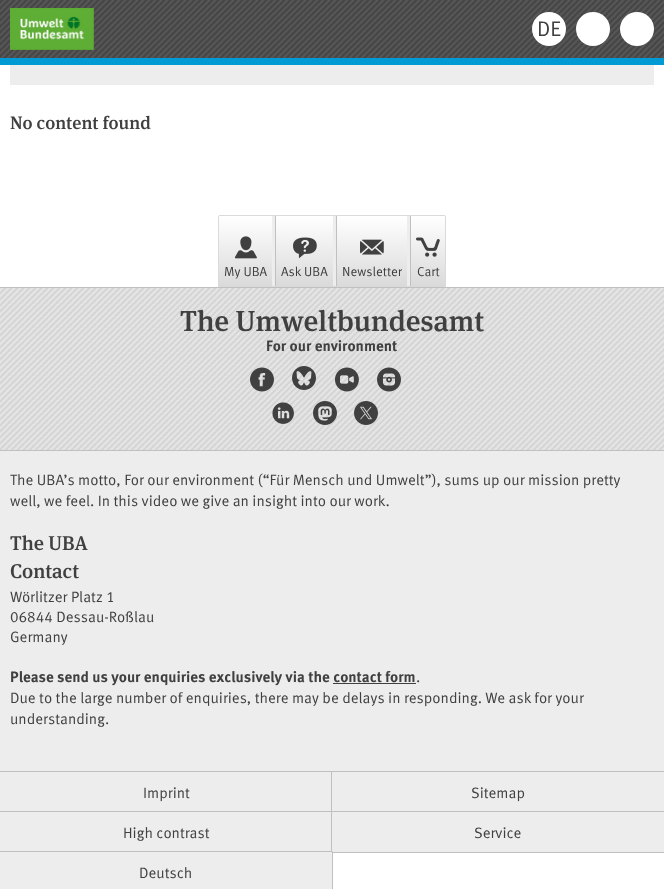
async function draw(canvas) {
  canvas.width = 664
  canvas.height = 889
  const ctx = canvas.getContext('2d')
  ctx.miterLimit = 4
  ctx.fontKerning = 'normal'
  async function loadImage(src) {
    const img = new Image()
    img.src = src
    await img.decode()
    return img
  }
  let gradient

  ctx.fillStyle = '#fff'
  ctx.fillRect(0, 0, 664, 889)
  ctx.drawImage(await loadImage('image0.png'), 0, 0, 664, 58)
  ctx.fillStyle = '#009bd5'
  ctx.fillRect(0, 58, 664, 7)
  ctx.drawImage(await loadImage('image1.png'), 10, 8, 84, 42)
  ctx.fillStyle = '#fff'
  ctx.beginPath()
  ctx.arc(549, 29, 17, 0, 2 * Math.PI)
  ctx.fill()
  ctx.font = '21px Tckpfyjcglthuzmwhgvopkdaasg'
  ctx.fillStyle = '#404040'
  ctx.fillText('DE', 537, 36)
  ctx.fillStyle = '#fff'
  ctx.beginPath()
  ctx.arc(593, 29, 17, 0, 2 * Math.PI)
  ctx.fill()
  ctx.beginPath()
  ctx.arc(637, 29, 17, 0, 2 * Math.PI)
  ctx.fill()
  ctx.fillStyle = '#ededed'
  ctx.fillRect(10, 65, 644, 20)
  ctx.font = '500 18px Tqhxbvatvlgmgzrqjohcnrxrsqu'
  ctx.fillStyle = '#404040'
  ctx.fillText('No content found', 10, 129)
  ctx.fillStyle = '#ededed'
  ctx.beginPath()
  ctx.roundRect(218.5, 215.5, 227, 71, [1.5, 1.5, 0, 0])
  ctx.fill()
  ctx.strokeStyle = '#dadada'
  ctx.stroke()
  gradient = ctx.createLinearGradient(246, 216, 246, 286)
  gradient.addColorStop(0, '#fff')
  gradient.addColorStop(1, '#dadada')
  ctx.fillStyle = gradient
  ctx.beginPath()
  ctx.roundRect(219, 216, 53, 70, [1, 0, 0, 0])
  ctx.fill()
  ctx.drawImage(await loadImage('image2.png'), 234, 236, 23, 23)
  ctx.font = '13px Tckpfyjcglthuzmwhgvopkdaasg'
  ctx.fillStyle = '#404040'
  ctx.fillText('My UBA', 224, 276)
  gradient = ctx.createLinearGradient(305, 216, 305, 286)
  gradient.addColorStop(0, '#fff')
  gradient.addColorStop(1, '#dadada')
  ctx.fillStyle = gradient
  ctx.fillRect(276, 216, 57, 70)
  ctx.fillStyle = '#c0c0c0'
  ctx.fillRect(275, 216, 1, 70)
  ctx.drawImage(await loadImage('image3.png'), 293, 237, 24, 22)
  ctx.fillStyle = '#404040'
  ctx.fillText('Ask UBA', 281, 276)
  gradient = ctx.createLinearGradient(372, 216, 372, 286)
  gradient.addColorStop(0, '#fff')
  gradient.addColorStop(1, '#dadada')
  ctx.fillStyle = gradient
  ctx.fillRect(337, 216, 70, 70)
  ctx.fillStyle = '#c0c0c0'
  ctx.fillRect(336, 216, 1, 70)
  ctx.drawImage(await loadImage('image4.png'), 360, 239, 24, 16)
  ctx.fillStyle = '#404040'
  ctx.fillText('Newsletter', 342, 276)
  gradient = ctx.createLinearGradient(428, 216, 428, 286)
  gradient.addColorStop(0, '#fff')
  gradient.addColorStop(1, '#dadada')
  ctx.fillStyle = gradient
  ctx.beginPath()
  ctx.roundRect(410, 216, 35, 70, [0, 1, 0, 0])
  ctx.fill()
  ctx.fillStyle = '#c0c0c0'
  ctx.fillRect(410, 216, 1, 70)
  ctx.drawImage(await loadImage('image5.png'), 416, 237, 24, 20)
  ctx.fillStyle = '#404040'
  ctx.fillText('Cart', 417, 276)
  ctx.drawImage(await loadImage('image6.png'), 0, 288, 664, 162)
  ctx.fillStyle = '#c0c0c0'
  ctx.fillRect(0, 287, 664, 1)
  ctx.fillRect(0, 450, 664, 1)
  ctx.font = '500 29px Tqhxbvatvlgmgzrqjohcnrxrsqu'
  ctx.fillStyle = '#404040'
  ctx.fillText('The Umweltbundesamt', 180, 331)
  ctx.font = 'bold 15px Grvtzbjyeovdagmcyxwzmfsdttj'
  ctx.fillText('For our environment', 266, 351)
  ctx.drawImage(await loadImage('image7.png'), 250, 367, 24, 25)
  ctx.drawImage(await loadImage('image8.png'), 292, 366, 24, 24)
  ctx.drawImage(await loadImage('image9.png'), 334, 367, 25, 25)
  ctx.drawImage(await loadImage('image10.png'), 377, 367, 24, 25)
  ctx.drawImage(await loadImage('image11.png'), 272, 402, 22, 22)
  ctx.drawImage(await loadImage('image12.png'), 313, 401, 24, 24)
  ctx.drawImage(await loadImage('image13.png'), 354, 401, 24, 24)
  ctx.fillStyle = '#ededed'
  ctx.fillRect(0, 451, 664, 320)
  ctx.fillStyle = '#c0c0c0'
  ctx.fillRect(0, 771, 664, 1)
  ctx.font = '15px Tckpfyjcglthuzmwhgvopkdaasg'
  ctx.fillStyle = '#404040'
  ctx.fillText('The UBA’s motto, For our environment (“Für Mensch und Umwelt”), sums up our mission pretty', 10, 485)
  ctx.fillText('well, we feel. In this video we give an insight into our work.', 10, 506)
  ctx.font = '500 20px Tqhxbvatvlgmgzrqjohcnrxrsqu'
  ctx.fillText('The UBA', 10, 550)
  ctx.fillText('Contact', 10, 578)
  ctx.font = '15px Tckpfyjcglthuzmwhgvopkdaasg'
  ctx.fillText('Wörlitzer Platz 1', 10, 602)
  ctx.fillText('06844 Dessau-Roßlau', 10, 622)
  ctx.fillText('Germany', 10, 642)
  ctx.font = 'bold 15px Grvtzbjyeovdagmcyxwzmfsdttj'
  ctx.fillText('Please send us your enquiries exclusively via the contact form', 10, 682)
  ctx.font = '15px Tckpfyjcglthuzmwhgvopkdaasg'
  ctx.fillText('.', 416, 682)
  ctx.fillRect(333, 683, 83, 1)
  ctx.fillText('Due to the large number of enquiries, there may be delays in responding. We ask for your', 10, 703)
  ctx.fillText('understanding.', 10, 724)
  ctx.fillStyle = '#ededed'
  ctx.fillRect(0, 772, 331, 39)
  ctx.fillStyle = '#404040'
  ctx.fillText('Imprint', 143, 798)
  ctx.fillStyle = '#ededed'
  ctx.fillRect(332, 772, 332, 39)
  ctx.save()
  ctx.beginPath()
  ctx.rect(0, 772, 664, 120)
  ctx.clip()
  ctx.strokeStyle = '#c0c0c0'
  ctx.strokeRect(331.5, 771.5, 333, 41)
  ctx.restore()
  ctx.fillStyle = '#404040'
  ctx.fillText('Sitemap', 471, 798)
  ctx.fillStyle = '#ededed'
  ctx.fillRect(0, 812, 331, 39)
  ctx.strokeStyle = '#c0c0c0'
  ctx.strokeRect(-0.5, 811.5, 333, 41)
  ctx.fillStyle = '#404040'
  ctx.fillText('High contrast', 123, 838)
  ctx.fillStyle = '#ededed'
  ctx.beginPath()
  ctx.rect(331.5, 811.5, 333, 41)
  ctx.fill()
  ctx.stroke()
  ctx.fillStyle = '#404040'
  ctx.fillText('Service', 474, 838)
  ctx.fillStyle = '#ededed'
  ctx.beginPath()
  ctx.rect(-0.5, 851.5, 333, 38)
  ctx.fill()
  ctx.stroke()
  ctx.fillStyle = '#404040'
  ctx.fillText('Deutsch', 139, 878)
}

draw(document.querySelector('canvas'))
